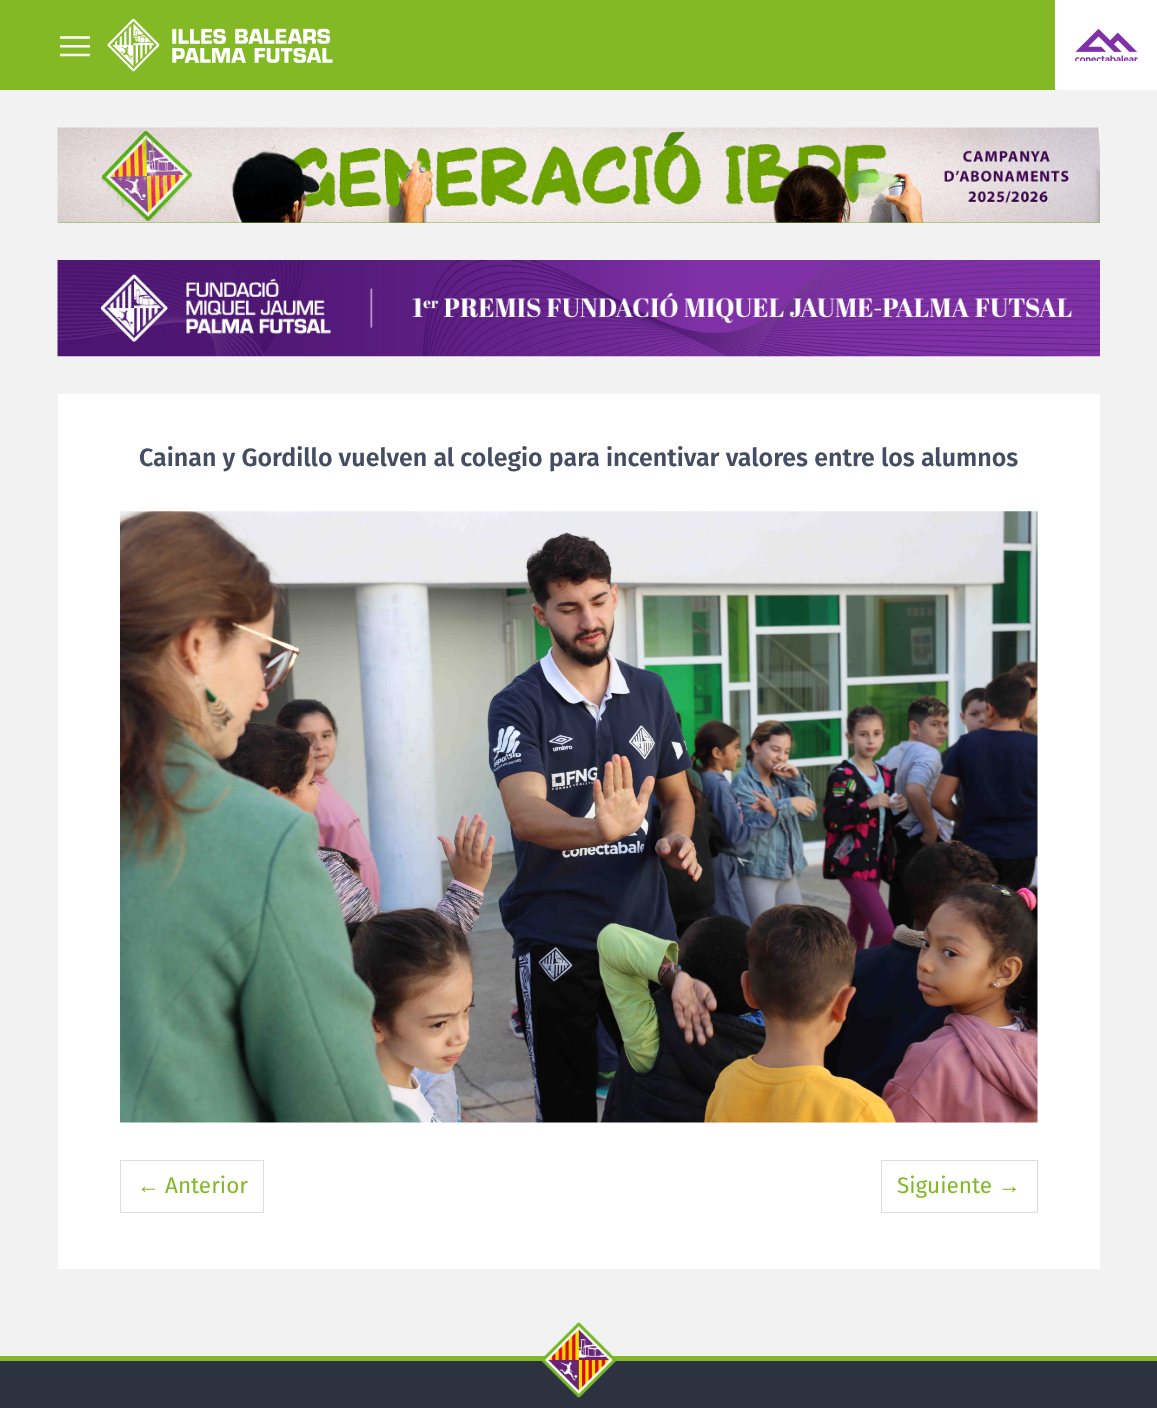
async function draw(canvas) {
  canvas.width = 1157
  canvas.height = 1408
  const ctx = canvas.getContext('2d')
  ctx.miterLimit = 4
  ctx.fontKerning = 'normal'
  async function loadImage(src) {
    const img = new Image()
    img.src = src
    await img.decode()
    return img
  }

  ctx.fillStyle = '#f2f2f2'
  ctx.fillRect(0, 0, 1157, 1408)
  ctx.fillStyle = '#82b925'
  ctx.fillRect(0, 0, 1055, 90)
  ctx.drawImage(await loadImage('image0.png'), 60, 36, 30, 21)
  ctx.drawImage(await loadImage('image1.png'), 107, 18, 226, 54)
  ctx.fillStyle = '#fff'
  ctx.fillRect(1055, 0, 102, 90)
  ctx.drawImage(await loadImage('image2.png'), 1075, 29, 63, 32)
  ctx.fillStyle = '#82b925'
  ctx.fillRect(58, 222, 1042, 1)
  ctx.drawImage(await loadImage('image3.png'), 57, 127, 1043, 96)
  ctx.drawImage(await loadImage('image4.png'), 57, 260, 1043, 97)
  ctx.fillStyle = '#fff'
  ctx.fillRect(58, 394, 1042, 875)
  ctx.font = '600 25px Fira Sans'
  ctx.fillStyle = '#454d62'
  ctx.fillText('Cainan y Gordillo vuelven al colegio para incentivar valores entre los alumnos', 139, 466)
  ctx.drawImage(await loadImage('image5.png'), 120, 511, 918, 612)
  ctx.strokeStyle = '#ddd'
  ctx.strokeRect(120.5, 1160.5, 143, 52)
  ctx.font = '22.5px Liberation Sans'
  ctx.fillStyle = '#82b925'
  ctx.fillText('←', 137, 1193)
  ctx.font = '22.5px Fira Sans'
  ctx.fillText('Anterior', 165, 1193)
  ctx.strokeRect(881.5, 1160.5, 156, 52)
  ctx.fillText('Siguiente', 897, 1193)
  ctx.font = '22.5px Liberation Sans'
  ctx.fillText('→', 998, 1193)
  ctx.fillStyle = '#2d3241'
  ctx.fillRect(0, 1361, 1157, 47)
  ctx.fillStyle = '#82b925'
  ctx.fillRect(0, 1356, 1157, 5)
  ctx.drawImage(await loadImage('image6.png'), 541, 1322, 76, 76)
}

draw(document.querySelector('canvas'))
